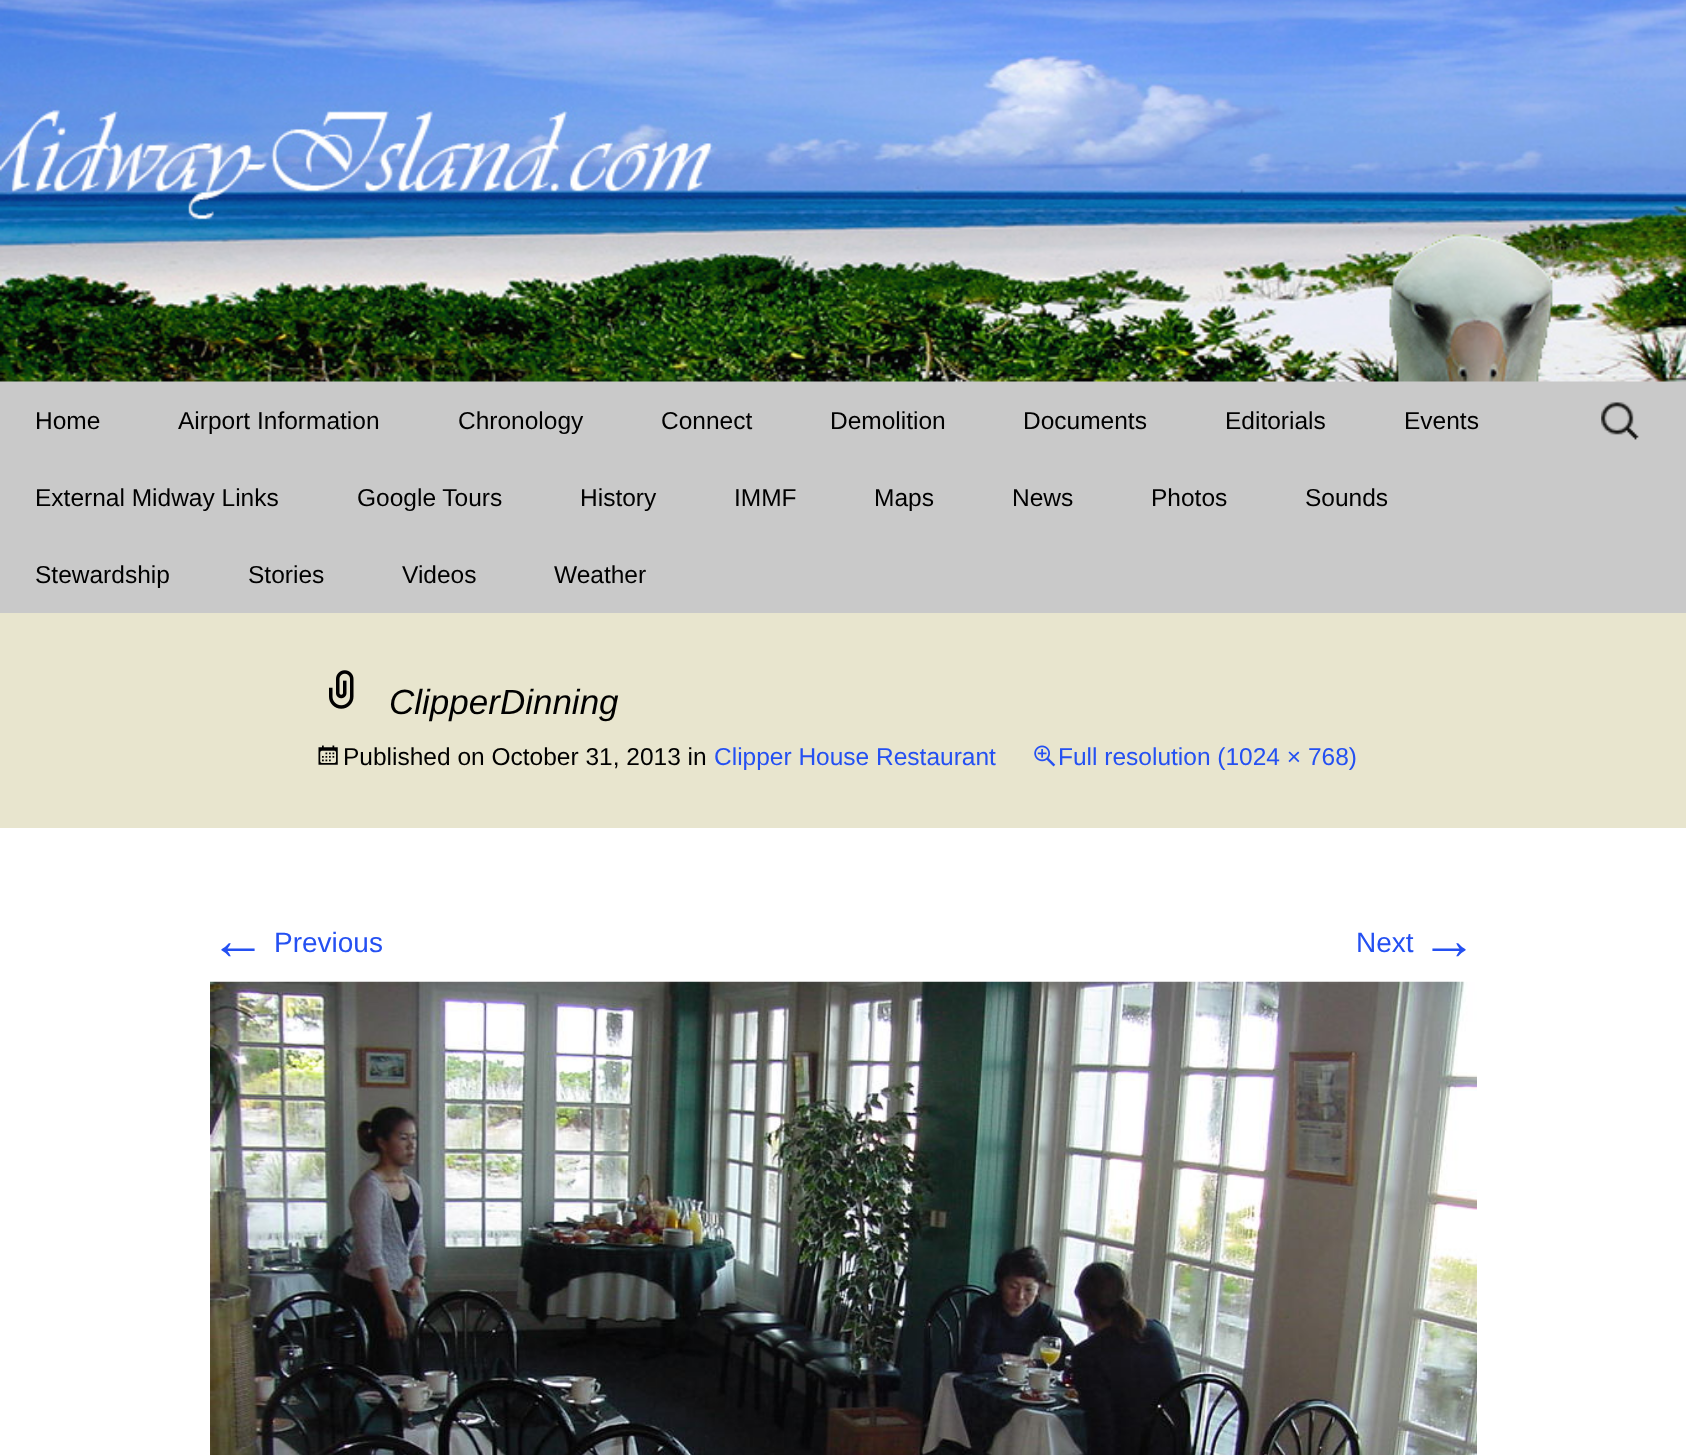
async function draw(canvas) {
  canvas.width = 1686
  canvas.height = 1455
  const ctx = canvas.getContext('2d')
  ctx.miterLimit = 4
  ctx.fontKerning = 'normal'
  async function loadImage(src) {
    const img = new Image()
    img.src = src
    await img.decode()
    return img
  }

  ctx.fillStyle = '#c9c9c9'
  ctx.fillRect(0, 0, 1686, 1455)
  ctx.drawImage(await loadImage('image0.png'), 0, 0, 1686, 382)
  ctx.font = '24.5px Liberation Sans'
  ctx.fillStyle = '#000'
  ctx.fillText('Home', 35, 429)
  ctx.fillText('Airport Information', 178, 429)
  ctx.fillText('Chronology', 458, 429)
  ctx.fillText('Connect', 661, 429)
  ctx.fillText('Demolition', 830, 429)
  ctx.fillText('Documents', 1023, 429)
  ctx.fillText('Editorials', 1225, 429)
  ctx.fillText('Events', 1404, 429)
  ctx.fillText('External Midway Links', 35, 506)
  ctx.fillText('Google Tours', 357, 506)
  ctx.fillText('History', 580, 506)
  ctx.fillText('IMMF', 734, 506)
  ctx.fillText('Maps', 874, 506)
  ctx.fillText('News', 1012, 506)
  ctx.fillText('Photos', 1151, 506)
  ctx.fillText('Sounds', 1305, 506)
  ctx.fillText('Stewardship', 35, 583)
  ctx.fillText('Stories', 248, 583)
  ctx.fillText('Videos', 402, 583)
  ctx.fillText('Weather', 554, 583)
  ctx.drawImage(await loadImage('image1.png'), 1601, 402, 38, 38)
  ctx.fillStyle = '#e8e5ce'
  ctx.fillRect(0, 613, 1686, 215)
  ctx.drawImage(await loadImage('image2.png'), 329, 670, 25, 39)
  ctx.font = 'italic 35px Liberation Sans'
  ctx.fillStyle = '#000'
  ctx.fillText('ClipperDinning', 389, 714)
  ctx.drawImage(await loadImage('image3.png'), 318, 745, 20, 20)
  ctx.font = '24.5px Liberation Sans'
  ctx.fillText('Published on October 31, 2013 in', 343, 765)
  ctx.fillStyle = '#2450f2'
  ctx.fillText('Clipper House Restaurant', 714, 765)
  ctx.drawImage(await loadImage('image4.png'), 1034, 745, 22, 22)
  ctx.fillText('Full resolution (1024 × 768)', 1058, 765)
  ctx.fillStyle = '#fff'
  ctx.fillRect(0, 828, 1686, 627)
  ctx.font = '56px Liberation Sans'
  ctx.fillStyle = '#2450f2'
  ctx.fillText('←', 210, 959)
  ctx.font = '28px Liberation Sans'
  ctx.fillText('Previous', 274, 952)
  ctx.fillText('Next', 1356, 952)
  ctx.font = '56px Liberation Sans'
  ctx.fillText('→', 1421, 959)
  ctx.drawImage(await loadImage('image5.png'), 210, 981, 1267, 474)
}

draw(document.querySelector('canvas'))
